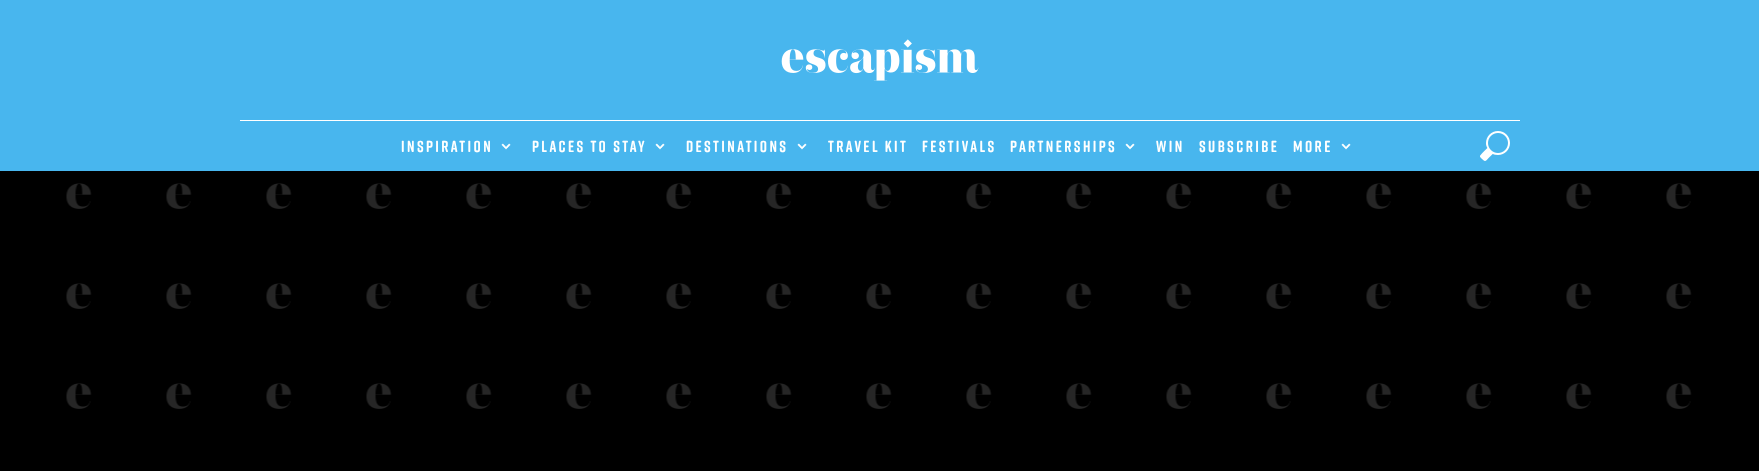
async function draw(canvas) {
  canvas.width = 1759
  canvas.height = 471
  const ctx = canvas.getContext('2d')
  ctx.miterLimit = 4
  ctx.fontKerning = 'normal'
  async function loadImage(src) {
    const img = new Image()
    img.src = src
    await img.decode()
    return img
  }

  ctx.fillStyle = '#fff'
  ctx.fillRect(0, 0, 1759, 471)
  ctx.fillStyle = '#48b6ee'
  ctx.fillRect(0, 0, 1759, 171)
  ctx.fillStyle = '#fff'
  ctx.fillRect(240, 120, 1280, 1)
  ctx.drawImage(await loadImage('image0.png'), 781, 39, 198, 42)
  ctx.letterSpacing = '2.4px'
  ctx.font = 'bold 16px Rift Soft'
  ctx.fillText('Inspiration', 401, 152)
  ctx.drawImage(await loadImage('image1.png'), 501, 143, 10, 7)
  ctx.fillText('Places to stay', 532, 152)
  ctx.drawImage(await loadImage('image1.png'), 655, 143, 10, 7)
  ctx.fillText('Destinations', 686, 152)
  ctx.drawImage(await loadImage('image1.png'), 797, 143, 10, 7)
  ctx.fillText('Travel Kit', 828, 152)
  ctx.fillText('Festivals', 922, 152)
  ctx.fillText('Partnerships', 1010, 152)
  ctx.drawImage(await loadImage('image1.png'), 1125, 143, 10, 7)
  ctx.fillText('Win', 1156, 152)
  ctx.fillText('Subscribe', 1199, 152)
  ctx.fillText('More', 1293, 152)
  ctx.drawImage(await loadImage('image1.png'), 1341, 143, 10, 7)
  ctx.drawImage(await loadImage('image2.png'), 1480, 131, 30, 30)
  ctx.drawImage(await loadImage('image3.png'), 0, 171, 1759, 300)
}

draw(document.querySelector('canvas'))
